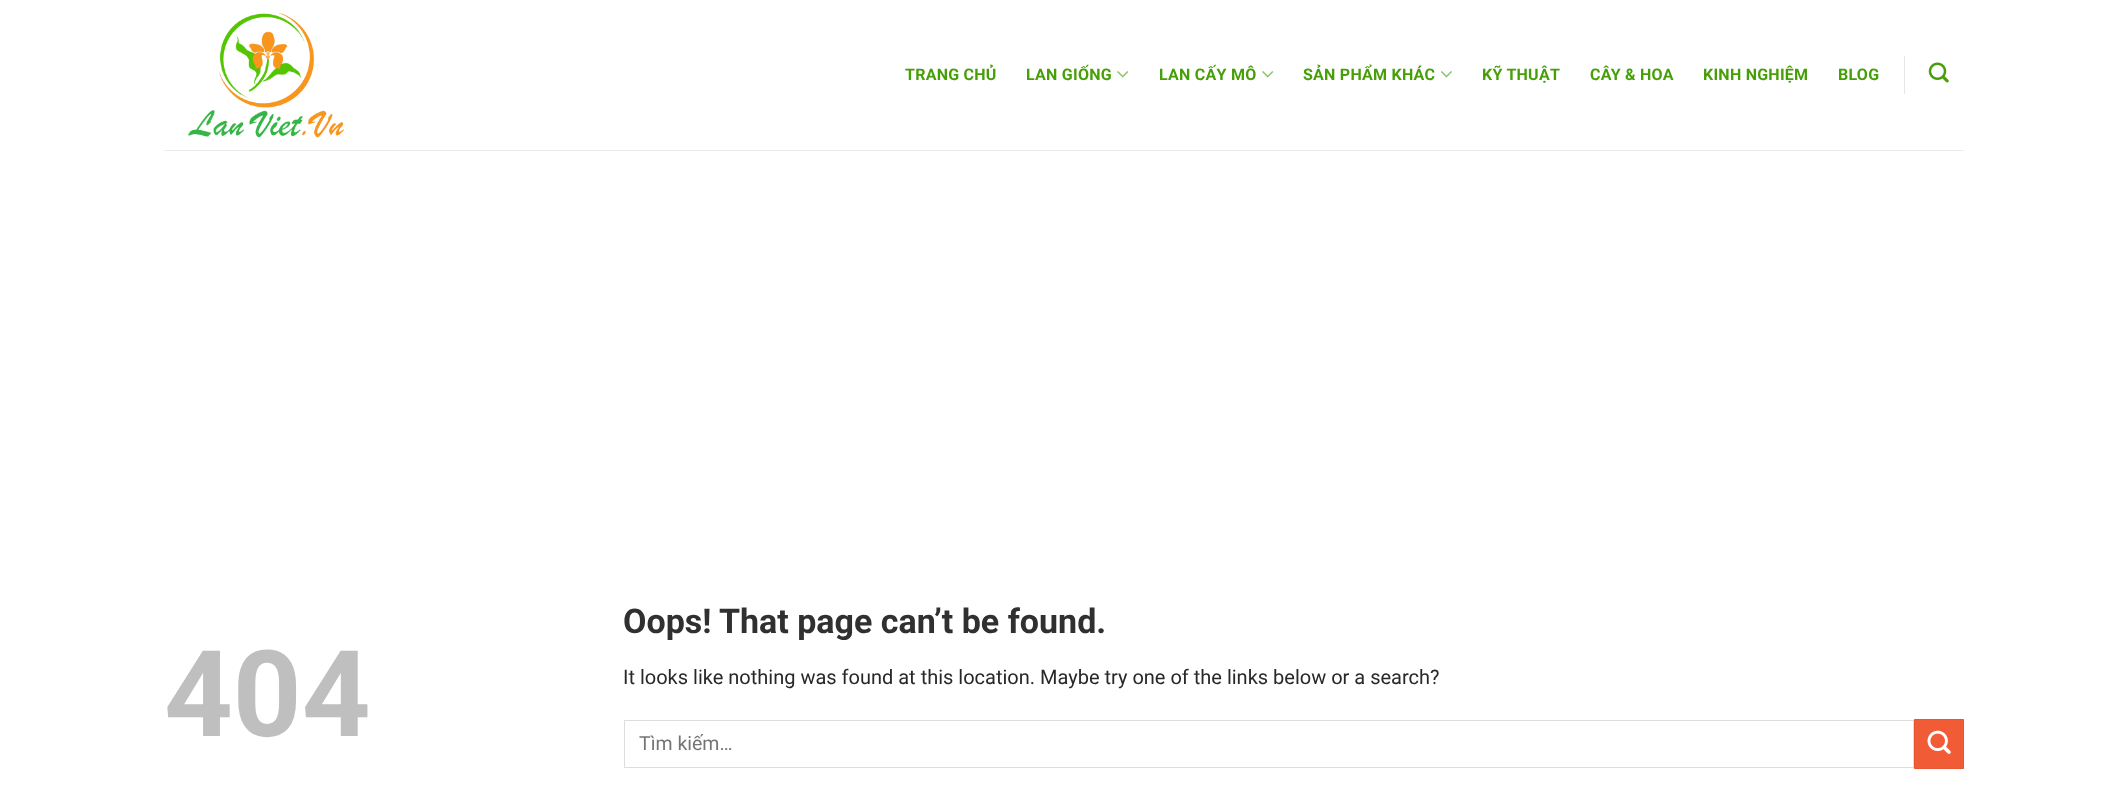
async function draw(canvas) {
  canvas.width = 2127
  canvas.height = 793
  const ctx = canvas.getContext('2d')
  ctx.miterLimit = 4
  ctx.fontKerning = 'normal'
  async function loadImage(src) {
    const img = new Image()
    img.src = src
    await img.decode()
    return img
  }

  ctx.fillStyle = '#fff'
  ctx.fillRect(0, 0, 2127, 793)
  ctx.drawImage(await loadImage('image0.png'), 188, 12, 156, 126)
  ctx.letterSpacing = '0.25px'
  ctx.font = 'bold 16px Roboto'
  ctx.fillStyle = '#479f08'
  ctx.fillText('TRANG CHỦ', 905, 80)
  ctx.fillText('LAN GIỐNG', 1026, 80)
  ctx.drawImage(await loadImage('image1.png'), 1117, 71, 12, 7)
  ctx.fillText('LAN CẤY MÔ', 1159, 80)
  ctx.drawImage(await loadImage('image1.png'), 1262, 71, 12, 7)
  ctx.fillText('SẢN PHẨM KHÁC', 1303, 80)
  ctx.drawImage(await loadImage('image2.png'), 1441, 71, 11, 7)
  ctx.fillText('KỸ THUẬT', 1482, 80)
  ctx.fillText('CÂY & HOA', 1590, 80)
  ctx.fillText('KINH NGHIỆM', 1703, 80)
  ctx.fillText('BLOG', 1838, 80)
  ctx.fillStyle = '#e6e6e6'
  ctx.fillRect(1904, 56, 1, 38)
  ctx.drawImage(await loadImage('image3.png'), 1928, 62, 21, 21)
  ctx.fillStyle = '#eaeaea'
  ctx.fillRect(164, 150, 1800, 1)
  ctx.letterSpacing = '0px'
  ctx.font = 'bold 120px Roboto'
  ctx.fillStyle = '#bfbfbf'
  ctx.fillText('404', 164, 736)
  ctx.font = 'bold 34px Roboto'
  ctx.fillStyle = '#303030'
  ctx.fillText('Oops! That page can’t be found.', 623, 633)
  ctx.font = '20px Roboto'
  ctx.fillStyle = '#282828'
  ctx.fillText('It looks like nothing was found at this location. Maybe try one of the links below or a search?', 623, 684)
  ctx.strokeStyle = '#ddd'
  ctx.strokeRect(624.5, 720.5, 1289, 47)
  ctx.font = '19.5px Roboto'
  ctx.fillStyle = '#757575'
  ctx.fillText('Tìm kiếm…', 639, 750)
  ctx.fillStyle = '#f15b36'
  ctx.beginPath()
  ctx.rect(1914.5, 719.5, 49, 49)
  ctx.fill()
  ctx.strokeStyle = '#e55633'
  ctx.stroke()
  ctx.drawImage(await loadImage('image4.png'), 1927, 730, 24, 24)
}

draw(document.querySelector('canvas'))
